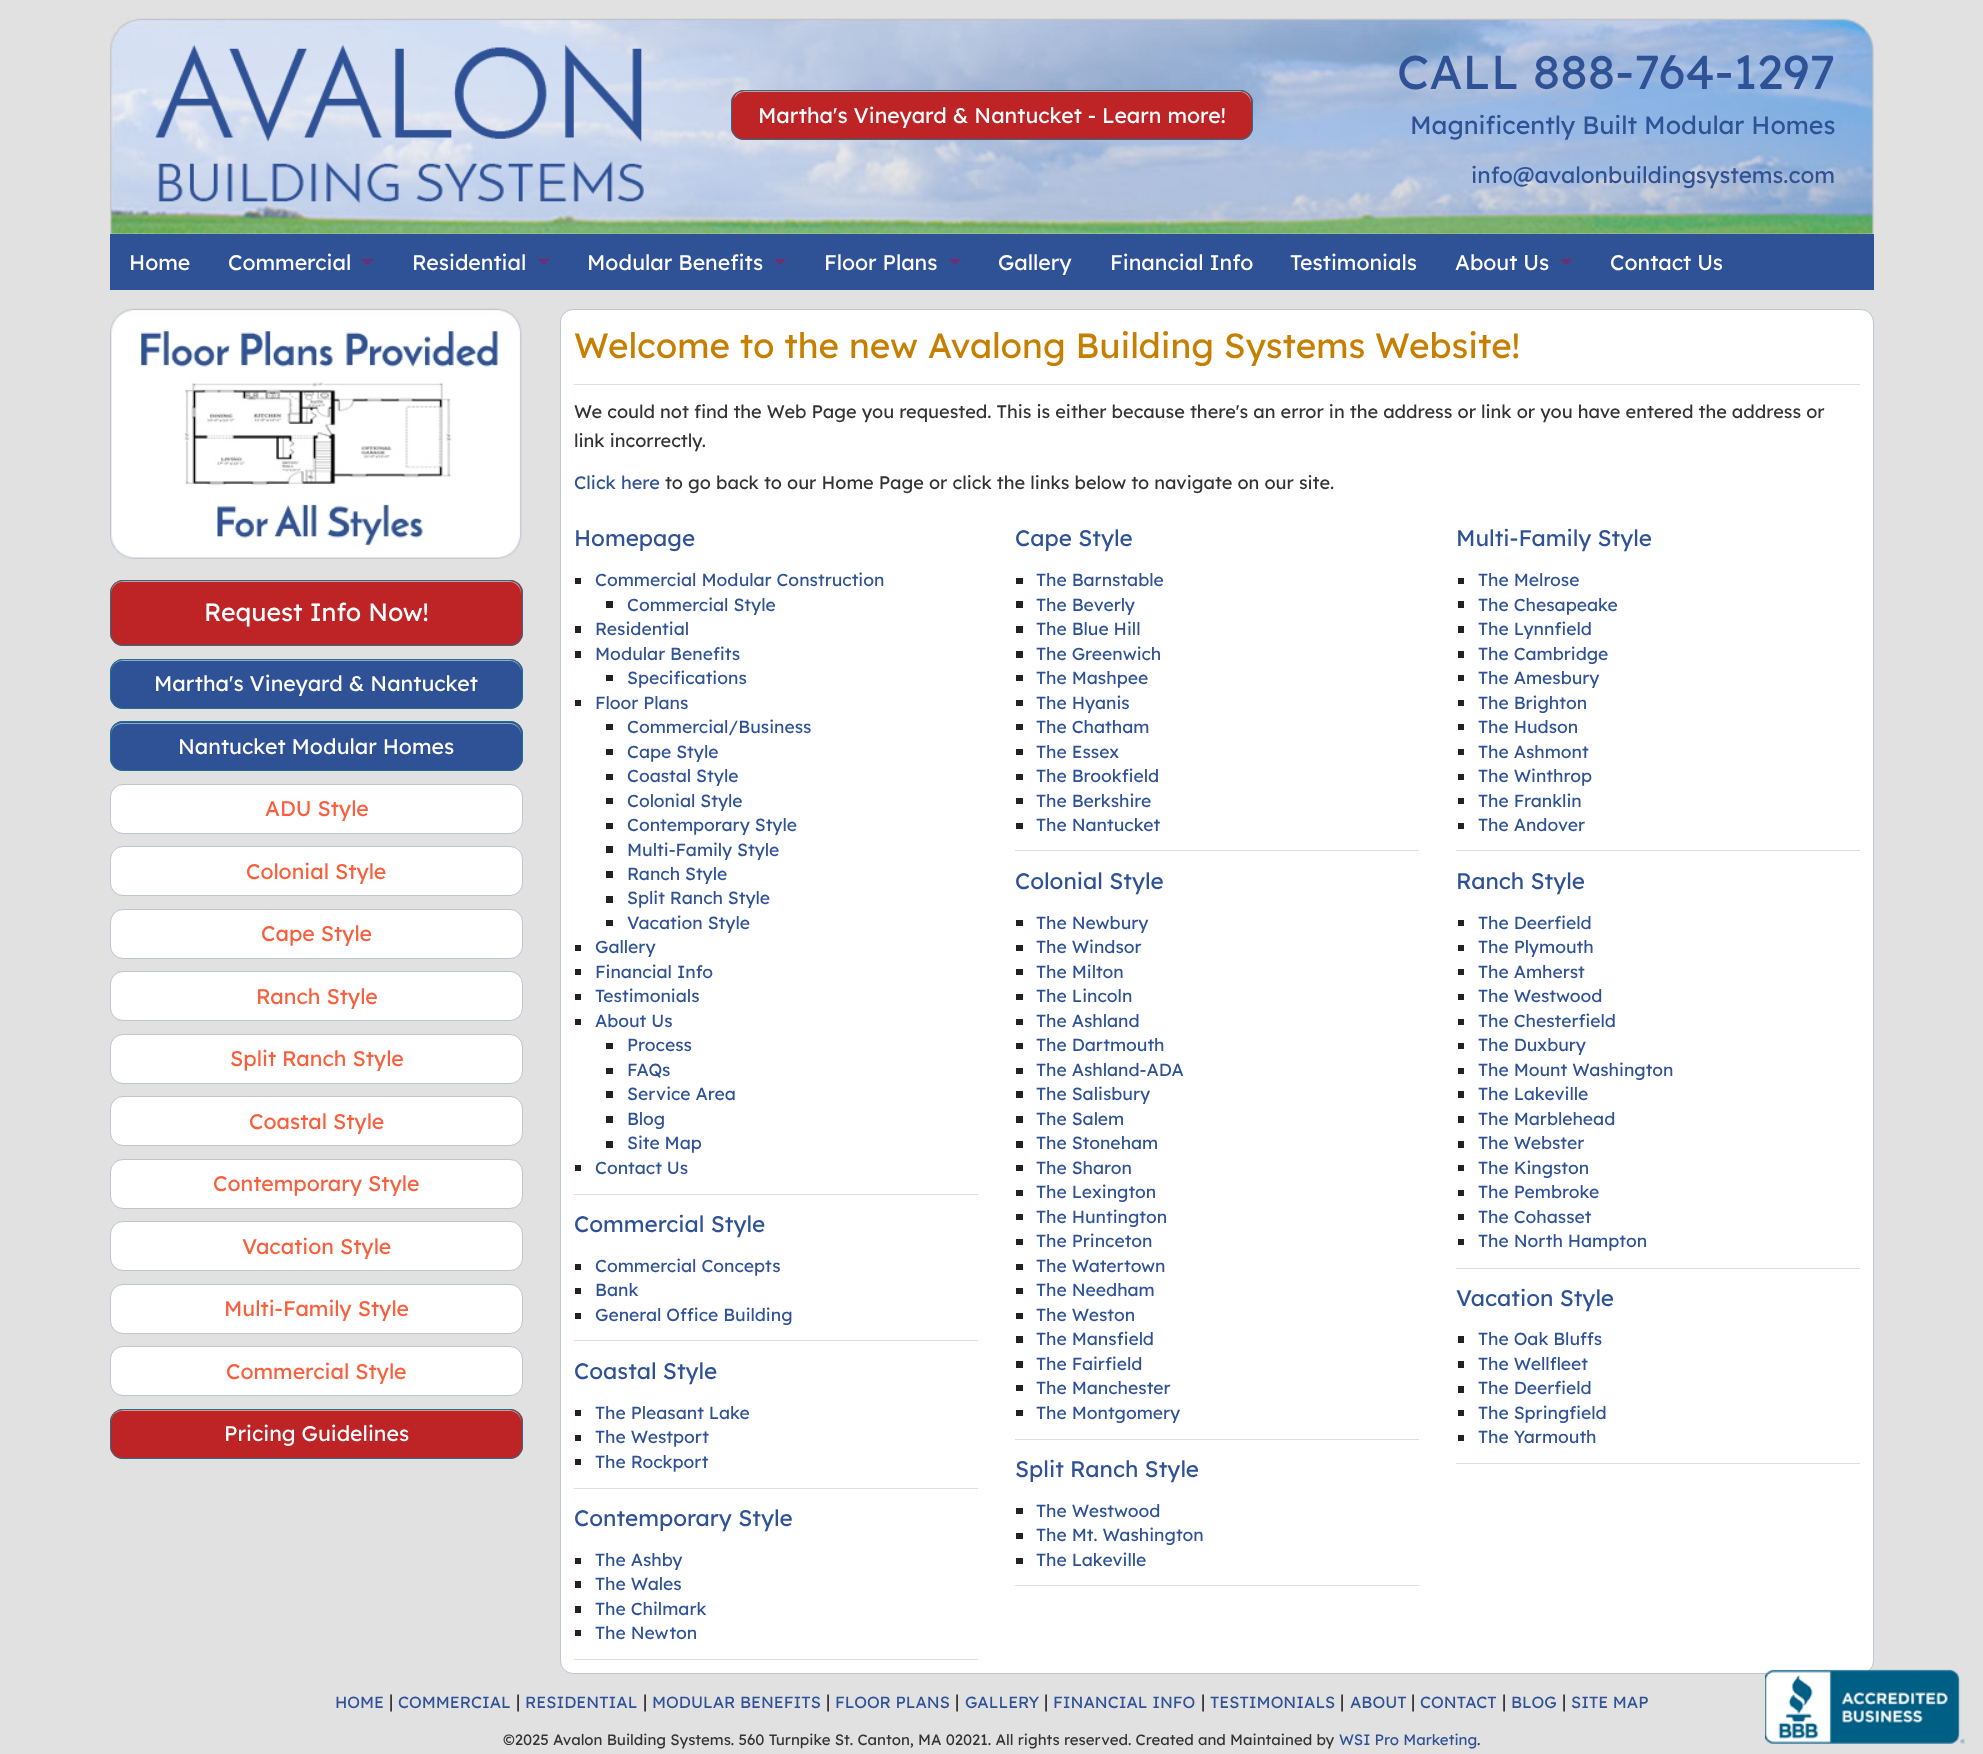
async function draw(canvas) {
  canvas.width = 1983
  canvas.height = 1754
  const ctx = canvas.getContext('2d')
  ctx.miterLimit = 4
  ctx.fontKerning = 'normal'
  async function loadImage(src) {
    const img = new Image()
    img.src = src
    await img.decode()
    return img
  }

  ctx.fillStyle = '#e1e1e1'
  ctx.fillRect(0, 0, 1983, 1754)
  ctx.drawImage(await loadImage('image0.png'), 110, 18, 1764, 216)
  ctx.drawImage(await loadImage('image1.png'), 155, 44, 489, 160)
  ctx.fillStyle = '#be2426'
  ctx.beginPath()
  ctx.roundRect(731, 90, 522, 50, 13)
  ctx.fill()
  ctx.fillStyle = '#df9293'
  ctx.beginPath()
  ctx.moveTo(744, 92)
  ctx.lineTo(1240, 92)
  ctx.bezierCurveTo(1246, 92, 1251, 98, 1251, 104)
  ctx.lineTo(1251, 102)
  ctx.bezierCurveTo(1251, 96, 1246, 91, 1240, 91)
  ctx.lineTo(744, 91)
  ctx.bezierCurveTo(739, 91, 735, 94, 734, 99)
  ctx.bezierCurveTo(736, 95, 740, 92, 744, 92)
  ctx.closePath()
  ctx.fill()
  ctx.beginPath()
  ctx.roundRect(731.5, 90.5, 521, 49, 12.5)
  ctx.strokeStyle = '#1e728c'
  ctx.stroke()
  ctx.font = '21.25px Lexend Deca'
  ctx.fillStyle = '#fff'
  ctx.fillText('Martha\'s Vineyard & Nantucket - Learn more!', 758, 123)
  ctx.font = '47.5px Lexend Deca'
  ctx.fillStyle = '#2f5296'
  ctx.fillText('CALL 888-764-1297', 1397, 89)
  ctx.font = '25px Lexend Deca'
  ctx.fillText('Magnificently Built Modular Homes', 1410, 134)
  ctx.font = '22.5px Lexend Deca'
  ctx.fillText('info@avalonbuildingsystems.com', 1471, 183)
  ctx.fillRect(110, 234, 1764, 56)
  ctx.font = '21.25px Lexend Deca'
  ctx.fillStyle = '#fff'
  ctx.fillText('Home', 129, 270)
  ctx.fillText('Commercial', 228, 270)
  ctx.fillStyle = '#722c70'
  ctx.beginPath()
  ctx.moveTo(361, 259)
  ctx.lineTo(374, 259)
  ctx.lineTo(367.5, 265)
  ctx.closePath()
  ctx.fill()
  ctx.fillStyle = '#fff'
  ctx.fillText('Residential', 412, 270)
  ctx.fillStyle = '#722c70'
  ctx.beginPath()
  ctx.moveTo(537.5, 259)
  ctx.lineTo(550, 259)
  ctx.lineTo(544, 265)
  ctx.closePath()
  ctx.fill()
  ctx.fillStyle = '#fff'
  ctx.fillText('Modular Benefits', 587, 270)
  ctx.fillStyle = '#722c70'
  ctx.beginPath()
  ctx.moveTo(774, 259)
  ctx.lineTo(786, 259)
  ctx.lineTo(780, 265)
  ctx.closePath()
  ctx.fill()
  ctx.fillStyle = '#fff'
  ctx.fillText('Floor Plans', 824, 270)
  ctx.fillStyle = '#722c70'
  ctx.beginPath()
  ctx.moveTo(949, 259)
  ctx.lineTo(961, 259)
  ctx.lineTo(955, 265)
  ctx.closePath()
  ctx.fill()
  ctx.fillStyle = '#fff'
  ctx.fillText('Gallery', 998, 270)
  ctx.fillText('Financial Info', 1110, 270)
  ctx.fillText('Testimonials', 1290, 270)
  ctx.fillText('About Us', 1455, 270)
  ctx.fillStyle = '#722c70'
  ctx.beginPath()
  ctx.moveTo(1560, 259)
  ctx.lineTo(1572.5, 259)
  ctx.lineTo(1566, 265)
  ctx.closePath()
  ctx.fill()
  ctx.fillStyle = '#fff'
  ctx.fillText('Contact Us', 1610, 270)
  ctx.drawImage(await loadImage('image2.png'), 110, 308, 413, 251)
  ctx.fillStyle = '#be2426'
  ctx.beginPath()
  ctx.roundRect(110, 580, 413, 66, 13)
  ctx.fill()
  ctx.fillStyle = '#df9293'
  ctx.beginPath()
  ctx.moveTo(122, 582)
  ctx.lineTo(510, 582)
  ctx.bezierCurveTo(516, 582, 521, 588, 521, 594)
  ctx.lineTo(521, 592)
  ctx.bezierCurveTo(521, 586, 516, 581, 510, 581)
  ctx.lineTo(122, 581)
  ctx.bezierCurveTo(116, 581, 111, 586, 111, 592)
  ctx.lineTo(111, 594)
  ctx.bezierCurveTo(111, 588, 116, 582, 122, 582)
  ctx.closePath()
  ctx.fill()
  ctx.beginPath()
  ctx.roundRect(110.5, 580.5, 412, 65, 12.5)
  ctx.stroke()
  ctx.font = '25px Lexend Deca'
  ctx.fillStyle = '#fff'
  ctx.fillText('Request Info Now!', 204, 621)
  ctx.fillStyle = '#2f5296'
  ctx.beginPath()
  ctx.roundRect(110, 659, 413, 50, 13)
  ctx.fill()
  ctx.fillStyle = '#97a9cb'
  ctx.beginPath()
  ctx.moveTo(122, 661)
  ctx.lineTo(510, 661)
  ctx.bezierCurveTo(516, 661, 521, 666, 521, 672)
  ctx.lineTo(521, 671)
  ctx.bezierCurveTo(521, 665, 516, 660, 510, 660)
  ctx.lineTo(122, 660)
  ctx.bezierCurveTo(116, 660, 111, 665, 111, 671)
  ctx.lineTo(111, 672)
  ctx.bezierCurveTo(111, 666, 116, 661, 122, 661)
  ctx.closePath()
  ctx.fill()
  ctx.beginPath()
  ctx.roundRect(110.5, 659.5, 412, 49, 12.5)
  ctx.stroke()
  ctx.font = '21.25px Lexend Deca'
  ctx.fillStyle = '#fff'
  ctx.fillText('Martha\'s Vineyard & Nantucket', 154, 691)
  ctx.fillStyle = '#2f5296'
  ctx.beginPath()
  ctx.roundRect(110, 721, 413, 50, 13)
  ctx.fill()
  ctx.fillStyle = '#97a9cb'
  ctx.beginPath()
  ctx.moveTo(122, 724)
  ctx.lineTo(510, 724)
  ctx.bezierCurveTo(516, 724, 521, 729, 521, 735)
  ctx.lineTo(521, 734)
  ctx.bezierCurveTo(521, 728, 516, 723, 510, 723)
  ctx.lineTo(122, 723)
  ctx.bezierCurveTo(116, 723, 111, 728, 111, 734)
  ctx.lineTo(111, 735)
  ctx.bezierCurveTo(111, 729, 116, 724, 122, 724)
  ctx.closePath()
  ctx.fill()
  ctx.beginPath()
  ctx.roundRect(110.5, 721.5, 412, 49, 12.5)
  ctx.stroke()
  ctx.fillStyle = '#fff'
  ctx.fillText('Nantucket Modular Homes', 178, 754)
  ctx.beginPath()
  ctx.roundRect(110.5, 784.5, 412, 49, 12.5)
  ctx.fill()
  ctx.strokeStyle = '#bdc4d2'
  ctx.stroke()
  ctx.fillStyle = '#f85f3c'
  ctx.fillText('ADU Style', 265, 816)
  ctx.fillStyle = '#fff'
  ctx.beginPath()
  ctx.roundRect(110.5, 846.5, 412, 49, 12.5)
  ctx.fill()
  ctx.stroke()
  ctx.fillStyle = '#f85f3c'
  ctx.fillText('Colonial Style', 246, 879)
  ctx.fillStyle = '#fff'
  ctx.beginPath()
  ctx.roundRect(110.5, 909.5, 412, 49, 12.5)
  ctx.fill()
  ctx.stroke()
  ctx.fillStyle = '#f85f3c'
  ctx.fillText('Cape Style', 261, 941)
  ctx.fillStyle = '#fff'
  ctx.beginPath()
  ctx.roundRect(110.5, 971.5, 412, 49, 12.5)
  ctx.fill()
  ctx.stroke()
  ctx.fillStyle = '#f85f3c'
  ctx.fillText('Ranch Style', 256, 1004)
  ctx.fillStyle = '#fff'
  ctx.beginPath()
  ctx.roundRect(110.5, 1034.5, 412, 49, 12.5)
  ctx.fill()
  ctx.stroke()
  ctx.fillStyle = '#f85f3c'
  ctx.fillText('Split Ranch Style', 230, 1066)
  ctx.fillStyle = '#fff'
  ctx.beginPath()
  ctx.roundRect(110.5, 1096.5, 412, 49, 12.5)
  ctx.fill()
  ctx.stroke()
  ctx.fillStyle = '#f85f3c'
  ctx.fillText('Coastal Style', 249, 1129)
  ctx.fillStyle = '#fff'
  ctx.beginPath()
  ctx.roundRect(110.5, 1159.5, 412, 49, 12.5)
  ctx.fill()
  ctx.stroke()
  ctx.fillStyle = '#f85f3c'
  ctx.fillText('Contemporary Style', 213, 1191)
  ctx.fillStyle = '#fff'
  ctx.beginPath()
  ctx.roundRect(110.5, 1221.5, 412, 49, 12.5)
  ctx.fill()
  ctx.stroke()
  ctx.fillStyle = '#f85f3c'
  ctx.fillText('Vacation Style', 242, 1254)
  ctx.fillStyle = '#fff'
  ctx.beginPath()
  ctx.roundRect(110.5, 1284.5, 412, 49, 12.5)
  ctx.fill()
  ctx.stroke()
  ctx.fillStyle = '#f85f3c'
  ctx.fillText('Multi-Family Style', 224, 1316)
  ctx.fillStyle = '#fff'
  ctx.beginPath()
  ctx.roundRect(110.5, 1346.5, 412, 49, 12.5)
  ctx.fill()
  ctx.stroke()
  ctx.fillStyle = '#f85f3c'
  ctx.fillText('Commercial Style', 226, 1379)
  ctx.fillStyle = '#be2426'
  ctx.beginPath()
  ctx.roundRect(110, 1409, 413, 50, 13)
  ctx.fill()
  ctx.fillStyle = '#df9293'
  ctx.beginPath()
  ctx.moveTo(122, 1411)
  ctx.lineTo(510, 1411)
  ctx.bezierCurveTo(516, 1411, 521, 1416, 521, 1422)
  ctx.lineTo(521, 1421)
  ctx.bezierCurveTo(521, 1415, 516, 1410, 510, 1410)
  ctx.lineTo(122, 1410)
  ctx.bezierCurveTo(116, 1410, 111, 1415, 111, 1421)
  ctx.lineTo(111, 1422)
  ctx.bezierCurveTo(111, 1416, 116, 1411, 122, 1411)
  ctx.closePath()
  ctx.fill()
  ctx.beginPath()
  ctx.roundRect(110.5, 1409.5, 412, 49, 12.5)
  ctx.strokeStyle = '#1e728c'
  ctx.stroke()
  ctx.fillStyle = '#fff'
  ctx.fillText('Pricing Guidelines', 224, 1441)
  ctx.beginPath()
  ctx.roundRect(560.5, 309.5, 1313, 1364, 12.5)
  ctx.fill()
  ctx.strokeStyle = '#bdc4d2'
  ctx.stroke()
  ctx.font = '35px Lexend Deca'
  ctx.fillStyle = '#c67f00'
  ctx.fillText('Welcome to the new Avalong Building Systems Website!', 574, 358)
  ctx.fillStyle = '#ddd'
  ctx.fillRect(574, 384, 1286, 1)
  ctx.font = '18.12px Lexend Deca'
  ctx.fillStyle = '#333'
  ctx.fillText('We could not find the Web Page you requested. This is either because there\'s an error in the address or link or you have entered the address or', 574, 418)
  ctx.fillText('link incorrectly.', 574, 447)
  ctx.fillStyle = '#2f5296'
  ctx.fillText('Click here', 574, 489)
  ctx.fillStyle = '#333'
  ctx.fillText('to go back to our Home Page or click the links below to navigate on our site.', 665, 489)
  ctx.font = '22.5px Lexend Deca'
  ctx.fillStyle = '#2f5296'
  ctx.fillText('Homepage', 574, 546)
  ctx.fillStyle = '#222'
  ctx.fillRect(575, 578, 6, 6)
  ctx.font = '17.5px Lexend Deca'
  ctx.fillStyle = '#2f5296'
  ctx.fillText('Commercial Modular Construction', 595, 586)
  ctx.fillStyle = '#222'
  ctx.fillRect(606, 601, 7, 7)
  ctx.fillStyle = '#2f5296'
  ctx.fillText('Commercial Style', 627, 611)
  ctx.fillStyle = '#222'
  ctx.fillRect(575, 626, 6, 7)
  ctx.fillStyle = '#2f5296'
  ctx.fillText('Residential', 595, 635)
  ctx.fillStyle = '#222'
  ctx.fillRect(575, 651, 6, 7)
  ctx.fillStyle = '#2f5296'
  ctx.fillText('Modular Benefits', 595, 660)
  ctx.fillStyle = '#222'
  ctx.fillRect(606, 675, 7, 6)
  ctx.fillStyle = '#2f5296'
  ctx.fillText('Specifications', 627, 684)
  ctx.fillStyle = '#222'
  ctx.fillRect(575, 700, 6, 6)
  ctx.fillStyle = '#2f5296'
  ctx.fillText('Floor Plans', 595, 709)
  ctx.fillStyle = '#222'
  ctx.fillRect(606, 724, 7, 6)
  ctx.fillStyle = '#2f5296'
  ctx.fillText('Commercial/Business', 627, 733)
  ctx.fillStyle = '#222'
  ctx.fillRect(606, 749, 7, 6)
  ctx.fillStyle = '#2f5296'
  ctx.fillText('Cape Style', 627, 758)
  ctx.fillStyle = '#222'
  ctx.fillRect(606, 774, 7, 6)
  ctx.fillStyle = '#2f5296'
  ctx.fillText('Coastal Style', 627, 782)
  ctx.fillStyle = '#222'
  ctx.fillRect(606, 798, 7, 6)
  ctx.fillStyle = '#2f5296'
  ctx.fillText('Colonial Style', 627, 807)
  ctx.fillStyle = '#222'
  ctx.fillRect(606, 823, 7, 6)
  ctx.fillStyle = '#2f5296'
  ctx.fillText('Contemporary Style', 627, 831)
  ctx.fillStyle = '#222'
  ctx.fillRect(606, 846, 7, 7)
  ctx.fillStyle = '#2f5296'
  ctx.fillText('Multi-Family Style', 627, 856)
  ctx.fillStyle = '#222'
  ctx.fillRect(606, 871, 7, 7)
  ctx.fillStyle = '#2f5296'
  ctx.fillText('Ranch Style', 627, 880)
  ctx.fillStyle = '#222'
  ctx.fillRect(606, 896, 7, 7)
  ctx.fillStyle = '#2f5296'
  ctx.fillText('Split Ranch Style', 627, 904)
  ctx.fillStyle = '#222'
  ctx.fillRect(606, 920, 7, 6)
  ctx.fillStyle = '#2f5296'
  ctx.fillText('Vacation Style', 627, 929)
  ctx.fillStyle = '#222'
  ctx.fillRect(575, 945, 6, 6)
  ctx.fillStyle = '#2f5296'
  ctx.fillText('Gallery', 595, 953)
  ctx.fillStyle = '#222'
  ctx.fillRect(575, 969, 6, 6)
  ctx.fillStyle = '#2f5296'
  ctx.fillText('Financial Info', 595, 978)
  ctx.fillStyle = '#222'
  ctx.fillRect(575, 994, 6, 6)
  ctx.fillStyle = '#2f5296'
  ctx.fillText('Testimonials', 595, 1002)
  ctx.fillStyle = '#222'
  ctx.fillRect(575, 1019, 6, 6)
  ctx.fillStyle = '#2f5296'
  ctx.fillText('About Us', 595, 1027)
  ctx.fillStyle = '#222'
  ctx.fillRect(606, 1043, 7, 6)
  ctx.fillStyle = '#2f5296'
  ctx.fillText('Process', 627, 1051)
  ctx.fillStyle = '#222'
  ctx.fillRect(606, 1068, 7, 6)
  ctx.fillStyle = '#2f5296'
  ctx.fillText('FAQs', 627, 1076)
  ctx.fillStyle = '#222'
  ctx.fillRect(606, 1091, 7, 7)
  ctx.fillStyle = '#2f5296'
  ctx.fillText('Service Area', 627, 1100)
  ctx.fillStyle = '#222'
  ctx.fillRect(606, 1116, 7, 7)
  ctx.fillStyle = '#2f5296'
  ctx.fillText('Blog', 627, 1125)
  ctx.fillStyle = '#222'
  ctx.fillRect(606, 1141, 7, 7)
  ctx.fillStyle = '#2f5296'
  ctx.fillText('Site Map', 627, 1149)
  ctx.fillStyle = '#222'
  ctx.fillRect(575, 1165, 6, 6)
  ctx.fillStyle = '#2f5296'
  ctx.fillText('Contact Us', 595, 1174)
  ctx.fillStyle = '#ddd'
  ctx.fillRect(574, 1194, 404, 1)
  ctx.font = '22.5px Lexend Deca'
  ctx.fillStyle = '#2f5296'
  ctx.fillText('Commercial Style', 574, 1232)
  ctx.fillStyle = '#222'
  ctx.fillRect(575, 1264, 6, 6)
  ctx.font = '17.5px Lexend Deca'
  ctx.fillStyle = '#2f5296'
  ctx.fillText('Commercial Concepts', 595, 1272)
  ctx.fillStyle = '#222'
  ctx.fillRect(575, 1288, 6, 6)
  ctx.fillStyle = '#2f5296'
  ctx.fillText('Bank', 595, 1296)
  ctx.fillStyle = '#222'
  ctx.fillRect(575, 1313, 6, 6)
  ctx.fillStyle = '#2f5296'
  ctx.fillText('General Office Building', 595, 1321)
  ctx.fillStyle = '#ddd'
  ctx.fillRect(574, 1340, 404, 1)
  ctx.font = '22.5px Lexend Deca'
  ctx.fillStyle = '#2f5296'
  ctx.fillText('Coastal Style', 574, 1379)
  ctx.fillStyle = '#222'
  ctx.fillRect(575, 1410, 6, 6)
  ctx.font = '17.5px Lexend Deca'
  ctx.fillStyle = '#2f5296'
  ctx.fillText('The Pleasant Lake', 595, 1419)
  ctx.fillStyle = '#222'
  ctx.fillRect(575, 1435, 6, 6)
  ctx.fillStyle = '#2f5296'
  ctx.fillText('The Westport', 595, 1443)
  ctx.fillStyle = '#222'
  ctx.fillRect(575, 1459, 6, 6)
  ctx.fillStyle = '#2f5296'
  ctx.fillText('The Rockport', 595, 1468)
  ctx.fillStyle = '#ddd'
  ctx.fillRect(574, 1488, 404, 1)
  ctx.font = '22.5px Lexend Deca'
  ctx.fillStyle = '#2f5296'
  ctx.fillText('Contemporary Style', 574, 1526)
  ctx.fillStyle = '#222'
  ctx.fillRect(575, 1558, 6, 6)
  ctx.font = '17.5px Lexend Deca'
  ctx.fillStyle = '#2f5296'
  ctx.fillText('The Ashby', 595, 1566)
  ctx.fillStyle = '#222'
  ctx.fillRect(575, 1581, 6, 7)
  ctx.fillStyle = '#2f5296'
  ctx.fillText('The Wales', 595, 1590)
  ctx.fillStyle = '#222'
  ctx.fillRect(575, 1606, 6, 7)
  ctx.fillStyle = '#2f5296'
  ctx.fillText('The Chilmark', 595, 1615)
  ctx.fillStyle = '#222'
  ctx.fillRect(575, 1630, 6, 6)
  ctx.fillStyle = '#2f5296'
  ctx.fillText('The Newton', 595, 1639)
  ctx.fillStyle = '#ddd'
  ctx.fillRect(574, 1659, 404, 1)
  ctx.font = '22.5px Lexend Deca'
  ctx.fillStyle = '#2f5296'
  ctx.fillText('Cape Style', 1015, 546)
  ctx.fillStyle = '#222'
  ctx.fillRect(1016, 578, 7, 6)
  ctx.font = '17.5px Lexend Deca'
  ctx.fillStyle = '#2f5296'
  ctx.fillText('The Barnstable', 1036, 586)
  ctx.fillStyle = '#222'
  ctx.fillRect(1016, 601, 7, 7)
  ctx.fillStyle = '#2f5296'
  ctx.fillText('The Beverly', 1036, 611)
  ctx.fillStyle = '#222'
  ctx.fillRect(1016, 626, 7, 7)
  ctx.fillStyle = '#2f5296'
  ctx.fillText('The Blue Hill', 1036, 635)
  ctx.fillStyle = '#222'
  ctx.fillRect(1016, 651, 7, 7)
  ctx.fillStyle = '#2f5296'
  ctx.fillText('The Greenwich', 1036, 660)
  ctx.fillStyle = '#222'
  ctx.fillRect(1016, 675, 7, 6)
  ctx.fillStyle = '#2f5296'
  ctx.fillText('The Mashpee', 1036, 684)
  ctx.fillStyle = '#222'
  ctx.fillRect(1016, 700, 7, 6)
  ctx.fillStyle = '#2f5296'
  ctx.fillText('The Hyanis', 1036, 709)
  ctx.fillStyle = '#222'
  ctx.fillRect(1016, 724, 7, 6)
  ctx.fillStyle = '#2f5296'
  ctx.fillText('The Chatham', 1036, 733)
  ctx.fillStyle = '#222'
  ctx.fillRect(1016, 749, 7, 6)
  ctx.fillStyle = '#2f5296'
  ctx.fillText('The Essex', 1036, 758)
  ctx.fillStyle = '#222'
  ctx.fillRect(1016, 774, 7, 6)
  ctx.fillStyle = '#2f5296'
  ctx.fillText('The Brookfield', 1036, 782)
  ctx.fillStyle = '#222'
  ctx.fillRect(1016, 798, 7, 6)
  ctx.fillStyle = '#2f5296'
  ctx.fillText('The Berkshire', 1036, 807)
  ctx.fillStyle = '#222'
  ctx.fillRect(1016, 823, 7, 6)
  ctx.fillStyle = '#2f5296'
  ctx.fillText('The Nantucket', 1036, 831)
  ctx.fillStyle = '#ddd'
  ctx.fillRect(1015, 850, 404, 1)
  ctx.font = '22.5px Lexend Deca'
  ctx.fillStyle = '#2f5296'
  ctx.fillText('Colonial Style', 1015, 889)
  ctx.fillStyle = '#222'
  ctx.fillRect(1016, 920, 7, 6)
  ctx.font = '17.5px Lexend Deca'
  ctx.fillStyle = '#2f5296'
  ctx.fillText('The Newbury', 1036, 929)
  ctx.fillStyle = '#222'
  ctx.fillRect(1016, 945, 7, 6)
  ctx.fillStyle = '#2f5296'
  ctx.fillText('The Windsor', 1036, 953)
  ctx.fillStyle = '#222'
  ctx.fillRect(1016, 969, 7, 6)
  ctx.fillStyle = '#2f5296'
  ctx.fillText('The Milton', 1036, 978)
  ctx.fillStyle = '#222'
  ctx.fillRect(1016, 994, 7, 6)
  ctx.fillStyle = '#2f5296'
  ctx.fillText('The Lincoln', 1036, 1002)
  ctx.fillStyle = '#222'
  ctx.fillRect(1016, 1019, 7, 6)
  ctx.fillStyle = '#2f5296'
  ctx.fillText('The Ashland', 1036, 1027)
  ctx.fillStyle = '#222'
  ctx.fillRect(1016, 1043, 7, 6)
  ctx.fillStyle = '#2f5296'
  ctx.fillText('The Dartmouth', 1036, 1051)
  ctx.fillStyle = '#222'
  ctx.fillRect(1016, 1068, 7, 6)
  ctx.fillStyle = '#2f5296'
  ctx.fillText('The Ashland-ADA', 1036, 1076)
  ctx.fillStyle = '#222'
  ctx.fillRect(1016, 1091, 7, 7)
  ctx.fillStyle = '#2f5296'
  ctx.fillText('The Salisbury', 1036, 1100)
  ctx.fillStyle = '#222'
  ctx.fillRect(1016, 1116, 7, 7)
  ctx.fillStyle = '#2f5296'
  ctx.fillText('The Salem', 1036, 1125)
  ctx.fillStyle = '#222'
  ctx.fillRect(1016, 1141, 7, 7)
  ctx.fillStyle = '#2f5296'
  ctx.fillText('The Stoneham', 1036, 1149)
  ctx.fillStyle = '#222'
  ctx.fillRect(1016, 1165, 7, 6)
  ctx.fillStyle = '#2f5296'
  ctx.fillText('The Sharon', 1036, 1174)
  ctx.fillStyle = '#222'
  ctx.fillRect(1016, 1190, 7, 6)
  ctx.fillStyle = '#2f5296'
  ctx.fillText('The Lexington', 1036, 1198)
  ctx.fillStyle = '#222'
  ctx.fillRect(1016, 1214, 7, 6)
  ctx.fillStyle = '#2f5296'
  ctx.fillText('The Huntington', 1036, 1223)
  ctx.fillStyle = '#222'
  ctx.fillRect(1016, 1239, 7, 6)
  ctx.fillStyle = '#2f5296'
  ctx.fillText('The Princeton', 1036, 1247)
  ctx.fillStyle = '#222'
  ctx.fillRect(1016, 1264, 7, 6)
  ctx.fillStyle = '#2f5296'
  ctx.fillText('The Watertown', 1036, 1272)
  ctx.fillStyle = '#222'
  ctx.fillRect(1016, 1288, 7, 6)
  ctx.fillStyle = '#2f5296'
  ctx.fillText('The Needham', 1036, 1296)
  ctx.fillStyle = '#222'
  ctx.fillRect(1016, 1313, 7, 6)
  ctx.fillStyle = '#2f5296'
  ctx.fillText('The Weston', 1036, 1321)
  ctx.fillStyle = '#222'
  ctx.fillRect(1016, 1336, 7, 7)
  ctx.fillStyle = '#2f5296'
  ctx.fillText('The Mansfield', 1036, 1345)
  ctx.fillStyle = '#222'
  ctx.fillRect(1016, 1361, 7, 7)
  ctx.fillStyle = '#2f5296'
  ctx.fillText('The Fairfield', 1036, 1370)
  ctx.fillStyle = '#222'
  ctx.fillRect(1016, 1385, 7, 6)
  ctx.fillStyle = '#2f5296'
  ctx.fillText('The Manchester', 1036, 1394)
  ctx.fillStyle = '#222'
  ctx.fillRect(1016, 1410, 7, 6)
  ctx.fillStyle = '#2f5296'
  ctx.fillText('The Montgomery', 1036, 1419)
  ctx.fillStyle = '#ddd'
  ctx.fillRect(1015, 1439, 404, 1)
  ctx.font = '22.5px Lexend Deca'
  ctx.fillStyle = '#2f5296'
  ctx.fillText('Split Ranch Style', 1015, 1477)
  ctx.fillStyle = '#222'
  ctx.fillRect(1016, 1508, 7, 6)
  ctx.font = '17.5px Lexend Deca'
  ctx.fillStyle = '#2f5296'
  ctx.fillText('The Westwood', 1036, 1517)
  ctx.fillStyle = '#222'
  ctx.fillRect(1016, 1533, 7, 6)
  ctx.fillStyle = '#2f5296'
  ctx.fillText('The Mt. Washington', 1036, 1541)
  ctx.fillStyle = '#222'
  ctx.fillRect(1016, 1558, 7, 6)
  ctx.fillStyle = '#2f5296'
  ctx.fillText('The Lakeville', 1036, 1566)
  ctx.fillStyle = '#ddd'
  ctx.fillRect(1015, 1585, 404, 1)
  ctx.font = '22.5px Lexend Deca'
  ctx.fillStyle = '#2f5296'
  ctx.fillText('Multi-Family Style', 1456, 546)
  ctx.fillStyle = '#222'
  ctx.fillRect(1458, 578, 6, 6)
  ctx.font = '17.5px Lexend Deca'
  ctx.fillStyle = '#2f5296'
  ctx.fillText('The Melrose', 1478, 586)
  ctx.fillStyle = '#222'
  ctx.fillRect(1458, 601, 6, 7)
  ctx.fillStyle = '#2f5296'
  ctx.fillText('The Chesapeake', 1478, 611)
  ctx.fillStyle = '#222'
  ctx.fillRect(1458, 626, 6, 7)
  ctx.fillStyle = '#2f5296'
  ctx.fillText('The Lynnfield', 1478, 635)
  ctx.fillStyle = '#222'
  ctx.fillRect(1458, 651, 6, 7)
  ctx.fillStyle = '#2f5296'
  ctx.fillText('The Cambridge', 1478, 660)
  ctx.fillStyle = '#222'
  ctx.fillRect(1458, 675, 6, 6)
  ctx.fillStyle = '#2f5296'
  ctx.fillText('The Amesbury', 1478, 684)
  ctx.fillStyle = '#222'
  ctx.fillRect(1458, 700, 6, 6)
  ctx.fillStyle = '#2f5296'
  ctx.fillText('The Brighton', 1478, 709)
  ctx.fillStyle = '#222'
  ctx.fillRect(1458, 724, 6, 6)
  ctx.fillStyle = '#2f5296'
  ctx.fillText('The Hudson', 1478, 733)
  ctx.fillStyle = '#222'
  ctx.fillRect(1458, 749, 6, 6)
  ctx.fillStyle = '#2f5296'
  ctx.fillText('The Ashmont', 1478, 758)
  ctx.fillStyle = '#222'
  ctx.fillRect(1458, 774, 6, 6)
  ctx.fillStyle = '#2f5296'
  ctx.fillText('The Winthrop', 1478, 782)
  ctx.fillStyle = '#222'
  ctx.fillRect(1458, 798, 6, 6)
  ctx.fillStyle = '#2f5296'
  ctx.fillText('The Franklin', 1478, 807)
  ctx.fillStyle = '#222'
  ctx.fillRect(1458, 823, 6, 6)
  ctx.fillStyle = '#2f5296'
  ctx.fillText('The Andover', 1478, 831)
  ctx.fillStyle = '#ddd'
  ctx.fillRect(1456, 850, 404, 1)
  ctx.font = '22.5px Lexend Deca'
  ctx.fillStyle = '#2f5296'
  ctx.fillText('Ranch Style', 1456, 889)
  ctx.fillStyle = '#222'
  ctx.fillRect(1458, 920, 6, 6)
  ctx.font = '17.5px Lexend Deca'
  ctx.fillStyle = '#2f5296'
  ctx.fillText('The Deerfield', 1478, 929)
  ctx.fillStyle = '#222'
  ctx.fillRect(1458, 945, 6, 6)
  ctx.fillStyle = '#2f5296'
  ctx.fillText('The Plymouth', 1478, 953)
  ctx.fillStyle = '#222'
  ctx.fillRect(1458, 969, 6, 6)
  ctx.fillStyle = '#2f5296'
  ctx.fillText('The Amherst', 1478, 978)
  ctx.fillStyle = '#222'
  ctx.fillRect(1458, 994, 6, 6)
  ctx.fillStyle = '#2f5296'
  ctx.fillText('The Westwood', 1478, 1002)
  ctx.fillStyle = '#222'
  ctx.fillRect(1458, 1019, 6, 6)
  ctx.fillStyle = '#2f5296'
  ctx.fillText('The Chesterfield', 1478, 1027)
  ctx.fillStyle = '#222'
  ctx.fillRect(1458, 1043, 6, 6)
  ctx.fillStyle = '#2f5296'
  ctx.fillText('The Duxbury', 1478, 1051)
  ctx.fillStyle = '#222'
  ctx.fillRect(1458, 1068, 6, 6)
  ctx.fillStyle = '#2f5296'
  ctx.fillText('The Mount Washington', 1478, 1076)
  ctx.fillStyle = '#222'
  ctx.fillRect(1458, 1091, 6, 7)
  ctx.fillStyle = '#2f5296'
  ctx.fillText('The Lakeville', 1478, 1100)
  ctx.fillStyle = '#222'
  ctx.fillRect(1458, 1116, 6, 7)
  ctx.fillStyle = '#2f5296'
  ctx.fillText('The Marblehead', 1478, 1125)
  ctx.fillStyle = '#222'
  ctx.fillRect(1458, 1141, 6, 7)
  ctx.fillStyle = '#2f5296'
  ctx.fillText('The Webster', 1478, 1149)
  ctx.fillStyle = '#222'
  ctx.fillRect(1458, 1165, 6, 6)
  ctx.fillStyle = '#2f5296'
  ctx.fillText('The Kingston', 1478, 1174)
  ctx.fillStyle = '#222'
  ctx.fillRect(1458, 1190, 6, 6)
  ctx.fillStyle = '#2f5296'
  ctx.fillText('The Pembroke', 1478, 1198)
  ctx.fillStyle = '#222'
  ctx.fillRect(1458, 1214, 6, 6)
  ctx.fillStyle = '#2f5296'
  ctx.fillText('The Cohasset', 1478, 1223)
  ctx.fillStyle = '#222'
  ctx.fillRect(1458, 1239, 6, 6)
  ctx.fillStyle = '#2f5296'
  ctx.fillText('The North Hampton', 1478, 1247)
  ctx.fillStyle = '#ddd'
  ctx.fillRect(1456, 1268, 404, 1)
  ctx.font = '22.5px Lexend Deca'
  ctx.fillStyle = '#2f5296'
  ctx.fillText('Vacation Style', 1456, 1306)
  ctx.fillStyle = '#222'
  ctx.fillRect(1458, 1336, 6, 7)
  ctx.font = '17.5px Lexend Deca'
  ctx.fillStyle = '#2f5296'
  ctx.fillText('The Oak Bluffs', 1478, 1345)
  ctx.fillStyle = '#222'
  ctx.fillRect(1458, 1361, 6, 7)
  ctx.fillStyle = '#2f5296'
  ctx.fillText('The Wellfleet', 1478, 1370)
  ctx.fillStyle = '#222'
  ctx.fillRect(1458, 1386, 6, 7)
  ctx.fillStyle = '#2f5296'
  ctx.fillText('The Deerfield', 1478, 1394)
  ctx.fillStyle = '#222'
  ctx.fillRect(1458, 1410, 6, 6)
  ctx.fillStyle = '#2f5296'
  ctx.fillText('The Springfield', 1478, 1419)
  ctx.fillStyle = '#222'
  ctx.fillRect(1458, 1435, 6, 6)
  ctx.fillStyle = '#2f5296'
  ctx.fillText('The Yarmouth', 1478, 1443)
  ctx.fillStyle = '#ddd'
  ctx.fillRect(1456, 1463, 404, 1)
  ctx.font = '16.25px Lexend Deca'
  ctx.fillStyle = '#2f5296'
  ctx.fillText('HOME', 335, 1708)
  ctx.font = '18.12px Lexend Deca'
  ctx.fillStyle = '#333'
  ctx.fillText('|', 389, 1708)
  ctx.font = '16.25px Lexend Deca'
  ctx.fillStyle = '#2f5296'
  ctx.fillText('COMMERCIAL', 398, 1708)
  ctx.font = '18.12px Lexend Deca'
  ctx.fillStyle = '#333'
  ctx.fillText('|', 516, 1708)
  ctx.font = '16.25px Lexend Deca'
  ctx.fillStyle = '#2f5296'
  ctx.fillText('RESIDENTIAL', 525, 1708)
  ctx.font = '18.12px Lexend Deca'
  ctx.fillStyle = '#333'
  ctx.fillText('|', 643, 1708)
  ctx.font = '16.25px Lexend Deca'
  ctx.fillStyle = '#2f5296'
  ctx.fillText('MODULAR BENEFITS', 652, 1708)
  ctx.font = '18.12px Lexend Deca'
  ctx.fillStyle = '#333'
  ctx.fillText('|', 826, 1708)
  ctx.font = '16.25px Lexend Deca'
  ctx.fillStyle = '#2f5296'
  ctx.fillText('FLOOR PLANS', 835, 1708)
  ctx.font = '18.12px Lexend Deca'
  ctx.fillStyle = '#333'
  ctx.fillText('|', 955, 1708)
  ctx.font = '16.25px Lexend Deca'
  ctx.fillStyle = '#2f5296'
  ctx.fillText('GALLERY', 965, 1708)
  ctx.font = '18.12px Lexend Deca'
  ctx.fillStyle = '#333'
  ctx.fillText('|', 1044, 1708)
  ctx.font = '16.25px Lexend Deca'
  ctx.fillStyle = '#2f5296'
  ctx.fillText('FINANCIAL INFO', 1053, 1708)
  ctx.font = '18.12px Lexend Deca'
  ctx.fillStyle = '#333'
  ctx.fillText('|', 1201, 1708)
  ctx.font = '16.25px Lexend Deca'
  ctx.fillStyle = '#2f5296'
  ctx.fillText('TESTIMONIALS', 1210, 1708)
  ctx.font = '18.12px Lexend Deca'
  ctx.fillStyle = '#333'
  ctx.fillText('|', 1340, 1708)
  ctx.font = '16.25px Lexend Deca'
  ctx.fillStyle = '#2f5296'
  ctx.fillText('ABOUT', 1350, 1708)
  ctx.font = '18.12px Lexend Deca'
  ctx.fillStyle = '#333'
  ctx.fillText('|', 1411, 1708)
  ctx.font = '16.25px Lexend Deca'
  ctx.fillStyle = '#2f5296'
  ctx.fillText('CONTACT', 1420, 1708)
  ctx.font = '18.12px Lexend Deca'
  ctx.fillStyle = '#333'
  ctx.fillText('|', 1502, 1708)
  ctx.font = '16.25px Lexend Deca'
  ctx.fillStyle = '#2f5296'
  ctx.fillText('BLOG', 1511, 1708)
  ctx.font = '18.12px Lexend Deca'
  ctx.fillStyle = '#333'
  ctx.fillText('|', 1562, 1708)
  ctx.font = '16.25px Lexend Deca'
  ctx.fillStyle = '#2f5296'
  ctx.fillText('SITE MAP', 1571, 1708)
  ctx.font = '15px Lexend Deca'
  ctx.fillStyle = '#333'
  ctx.fillText('©2025 Avalon Building Systems. 560 Turnpike St. Canton, MA 02021. All rights reserved. Created and Maintained by', 503, 1745)
  ctx.fillStyle = '#2f5296'
  ctx.fillText('WSI Pro Marketing', 1339, 1745)
  ctx.fillStyle = '#333'
  ctx.fillText('.', 1477, 1745)
  ctx.drawImage(await loadImage('image3.png'), 1765, 1669, 200, 75)
}

draw(document.querySelector('canvas'))
